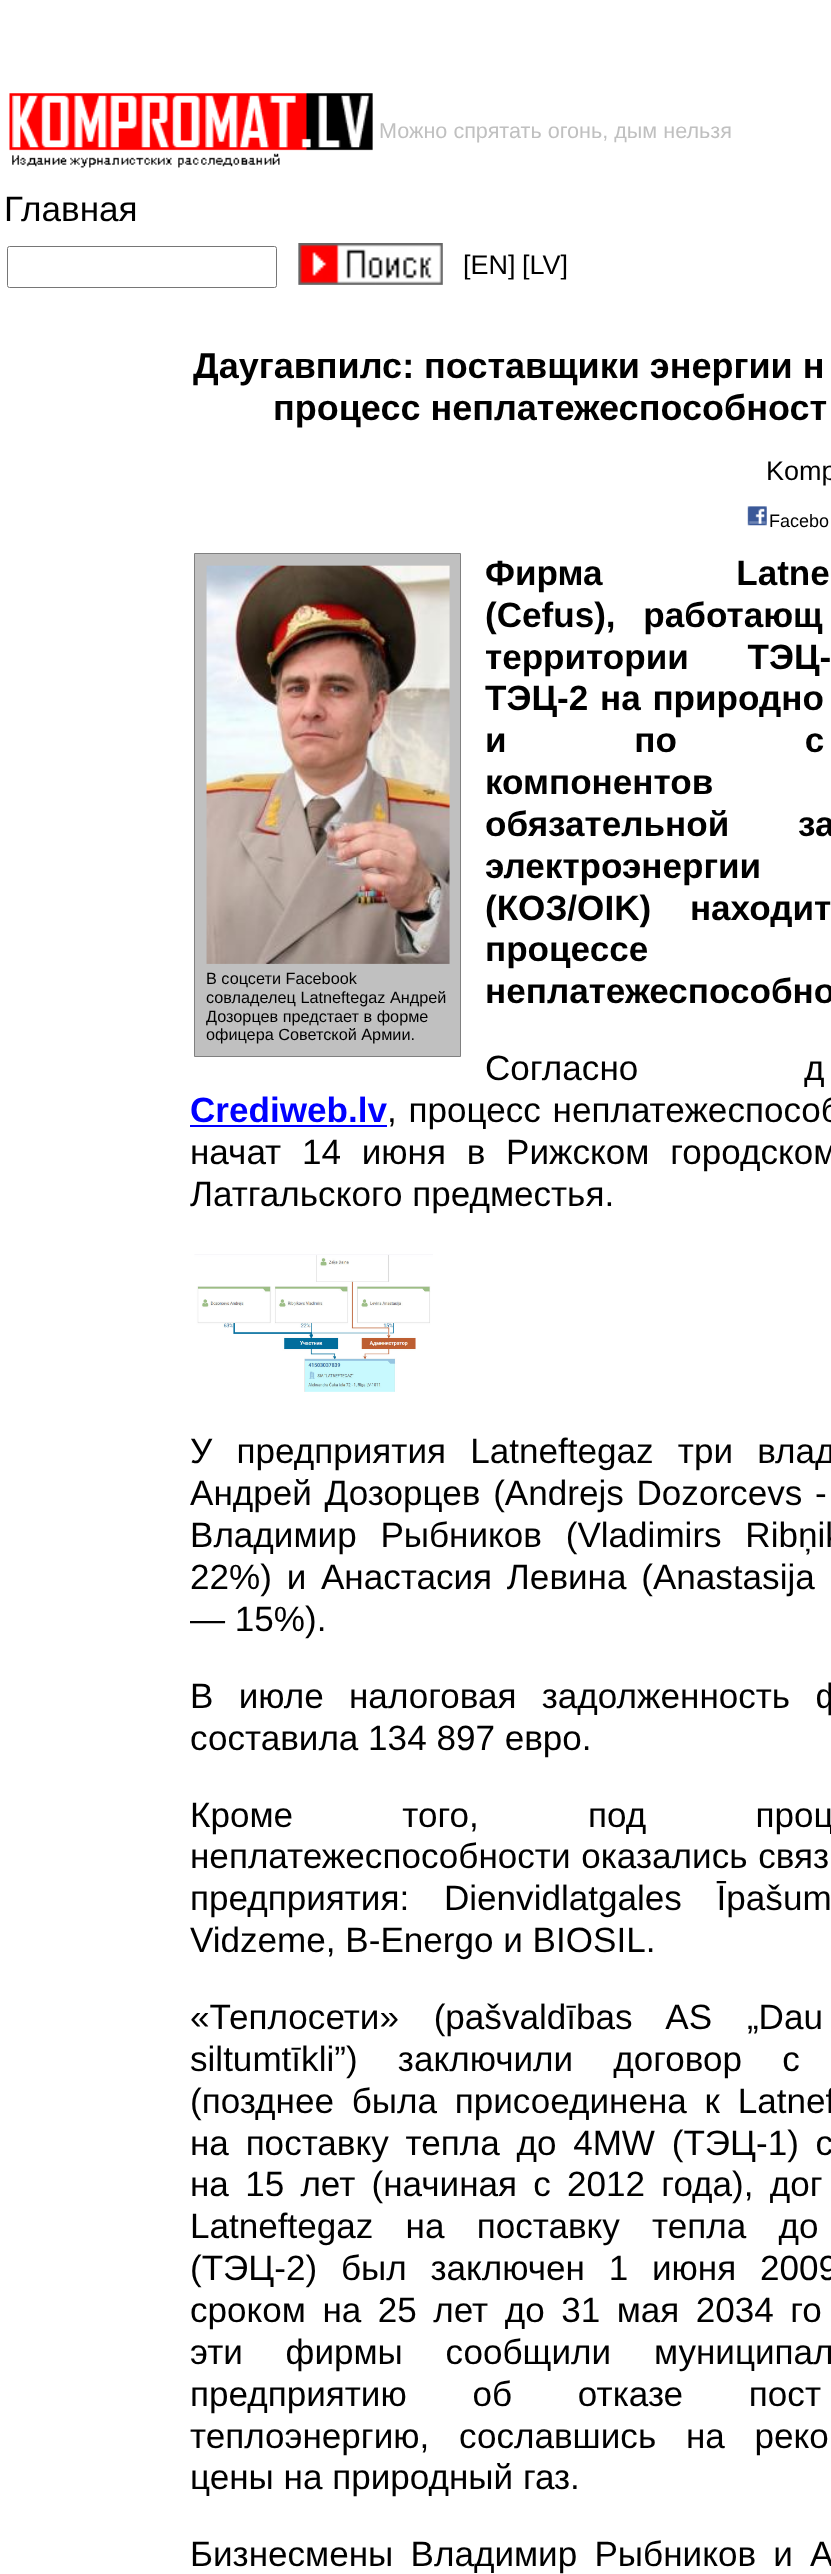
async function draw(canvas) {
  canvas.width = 831
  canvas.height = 2574
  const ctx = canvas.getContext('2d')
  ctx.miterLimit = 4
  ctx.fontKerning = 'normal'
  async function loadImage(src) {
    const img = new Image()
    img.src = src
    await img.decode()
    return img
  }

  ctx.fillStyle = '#fff'
  ctx.fillRect(0, 0, 831, 2574)
  ctx.drawImage(await loadImage('image0.png'), 9, 93, 364, 75)
  ctx.font = '21.6px Liberation Sans'
  ctx.fillStyle = '#c0c0c0'
  ctx.fillText('Можно спрятать огонь, дым нельзя', 379, 138)
  ctx.font = '35.1px Liberation Sans'
  ctx.fillStyle = '#000'
  ctx.fillText('Главная', 4, 221)
  ctx.beginPath()
  ctx.roundRect(7.5, 246.5, 269, 41, 2)
  ctx.strokeStyle = '#767676'
  ctx.stroke()
  ctx.drawImage(await loadImage('image1.png'), 298, 243, 145, 42)
  ctx.font = '27px Liberation Sans'
  ctx.fillText('[EN]', 463, 274)
  ctx.fillText('[LV]', 522, 274)
  ctx.font = 'bold 36px Liberation Sans'
  ctx.fillText('Даугавпилс: поставщики энергии н', 193, 378)
  ctx.fillText('процесс неплатежеспособност', 273, 420)
  ctx.font = '27px Liberation Sans'
  ctx.fillText('Komp', 766, 480)
  ctx.drawImage(await loadImage('image2.png'), 747, 506, 20, 20)
  ctx.font = '18px Liberation Sans'
  ctx.fillText('Facebo', 769, 527)
  ctx.wordSpacing = '124px'
  ctx.font = 'bold 35.1px Liberation Sans'
  ctx.fillText('Фирма Latne', 485, 585)
  ctx.wordSpacing = '18px'
  ctx.fillText('(Cefus), работающ', 485, 627)
  ctx.wordSpacing = '49px'
  ctx.fillText('территории ТЭЦ-', 485, 669)
  ctx.wordSpacing = '2px'
  ctx.fillText('ТЭЦ-2 на природно', 485, 710)
  ctx.wordSpacing = '118px'
  ctx.fillText('и по с', 485, 752)
  ctx.wordSpacing = '0px'
  ctx.fillText('компонентов', 485, 794)
  ctx.wordSpacing = '59px'
  ctx.fillText('обязательной за', 485, 836)
  ctx.wordSpacing = '0px'
  ctx.fillText('электроэнергии', 485, 878)
  ctx.wordSpacing = '29px'
  ctx.fillText('(КОЗ/OIK) находит', 485, 920)
  ctx.wordSpacing = '0px'
  ctx.fillText('процессе', 485, 961)
  ctx.fillText('неплатежеспособно', 485, 1003)
  ctx.wordSpacing = '156px'
  ctx.font = '35.1px Liberation Sans'
  ctx.fillText('Согласно д', 485, 1080)
  ctx.wordSpacing = '0px'
  ctx.font = 'bold 35.1px Liberation Sans'
  ctx.fillStyle = '#00f'
  ctx.fillText('Сrediweb.lv', 190, 1122)
  ctx.fillRect(190, 1125, 197, 2)
  ctx.wordSpacing = '2px'
  ctx.font = '35.1px Liberation Sans'
  ctx.fillStyle = '#000'
  ctx.fillText(', процесс неплатежеспособ', 387, 1122)
  ctx.wordSpacing = '11px'
  ctx.fillText('начат 14 июня в Рижском городском', 190, 1164)
  ctx.wordSpacing = '0px'
  ctx.fillText('Латгальского предместья.', 190, 1206)
  ctx.drawImage(await loadImage('image3.png'), 194, 1254, 239, 138)
  ctx.wordSpacing = '14.5px'
  ctx.fillText('У предприятия Latneftegaz три влад', 190, 1463)
  ctx.wordSpacing = '3px'
  ctx.fillText('Андрей Дозорцев (Andrejs Dozorcevs -', 190, 1505)
  ctx.wordSpacing = '14px'
  ctx.fillText('Владимир Рыбников (Vladimirs Ribņik', 190, 1547)
  ctx.wordSpacing = '5px'
  ctx.fillText('22%) и Анастасия Левина (Anastasija', 190, 1589)
  ctx.wordSpacing = '0px'
  ctx.fillText('— 15%).', 190, 1631)
  ctx.wordSpacing = '15.5px'
  ctx.fillText('В июле налоговая задолженность ф', 190, 1708)
  ctx.wordSpacing = '0px'
  ctx.fillText('составила 134 897 евро.', 190, 1750)
  ctx.wordSpacing = '99.5px'
  ctx.fillText('Кроме того, под проц', 190, 1827)
  ctx.wordSpacing = '1px'
  ctx.fillText('неплатежеспособности оказались связ', 190, 1868)
  ctx.wordSpacing = '25px'
  ctx.fillText('предприятия: Dienvidlatgales Īpašum', 190, 1910)
  ctx.wordSpacing = '0px'
  ctx.fillText('Vidzeme, B-Energo и BIOSIL.', 190, 1952)
  ctx.wordSpacing = '25px'
  ctx.fillText('«Теплосети» (pašvaldības AS „Dau', 190, 2029)
  ctx.wordSpacing = '30.5px'
  ctx.fillText('siltumtīkli”) заключили договор с', 190, 2071)
  ctx.wordSpacing = '8px'
  ctx.fillText('(позднее была присоединена к Latnef', 190, 2113)
  ctx.wordSpacing = '7px'
  ctx.fillText('на поставку тепла до 4MW (ТЭЦ-1) с', 190, 2155)
  ctx.wordSpacing = '6.5px'
  ctx.fillText('на 15 лет (начиная с 2012 года), дог', 190, 2196)
  ctx.wordSpacing = '22.5px'
  ctx.fillText('Latneftegaz на поставку тепла до', 190, 2238)
  ctx.wordSpacing = '14px'
  ctx.fillText('(ТЭЦ-2) был заключен 1 июня 2009', 190, 2280)
  ctx.wordSpacing = '6.75px'
  ctx.fillText('сроком на 25 лет до 31 мая 2034 го', 190, 2322)
  ctx.wordSpacing = '33px'
  ctx.fillText('эти фирмы сообщили муниципал', 190, 2364)
  ctx.wordSpacing = '56px'
  ctx.fillText('предприятию об отказе пост', 190, 2406)
  ctx.wordSpacing = '20px'
  ctx.fillText('теплоэнергию, сославшись на реко', 190, 2448)
  ctx.wordSpacing = '0px'
  ctx.fillText('цены на природный газ.', 190, 2489)
  ctx.wordSpacing = '7.5px'
  ctx.fillText('Бизнесмены Владимир Рыбников и А', 190, 2566)
  ctx.fillStyle = '#c0c0c0'
  ctx.beginPath()
  ctx.rect(194.5, 553.5, 266, 503)
  ctx.fill()
  ctx.strokeStyle = '#808080'
  ctx.stroke()
  ctx.drawImage(await loadImage('image4.png'), 206, 565, 244, 399)
  ctx.wordSpacing = '0px'
  ctx.font = '16.25px Liberation Sans'
  ctx.fillStyle = '#000'
  ctx.fillText('В соцсети Facebook', 206, 984)
  ctx.fillText('совладелец Latneftegaz Андрей', 206, 1003)
  ctx.fillText('Дозорцев предстает в форме', 206, 1022)
  ctx.fillText('офицера Советской Армии.', 206, 1040)
}

draw(document.querySelector('canvas'))
